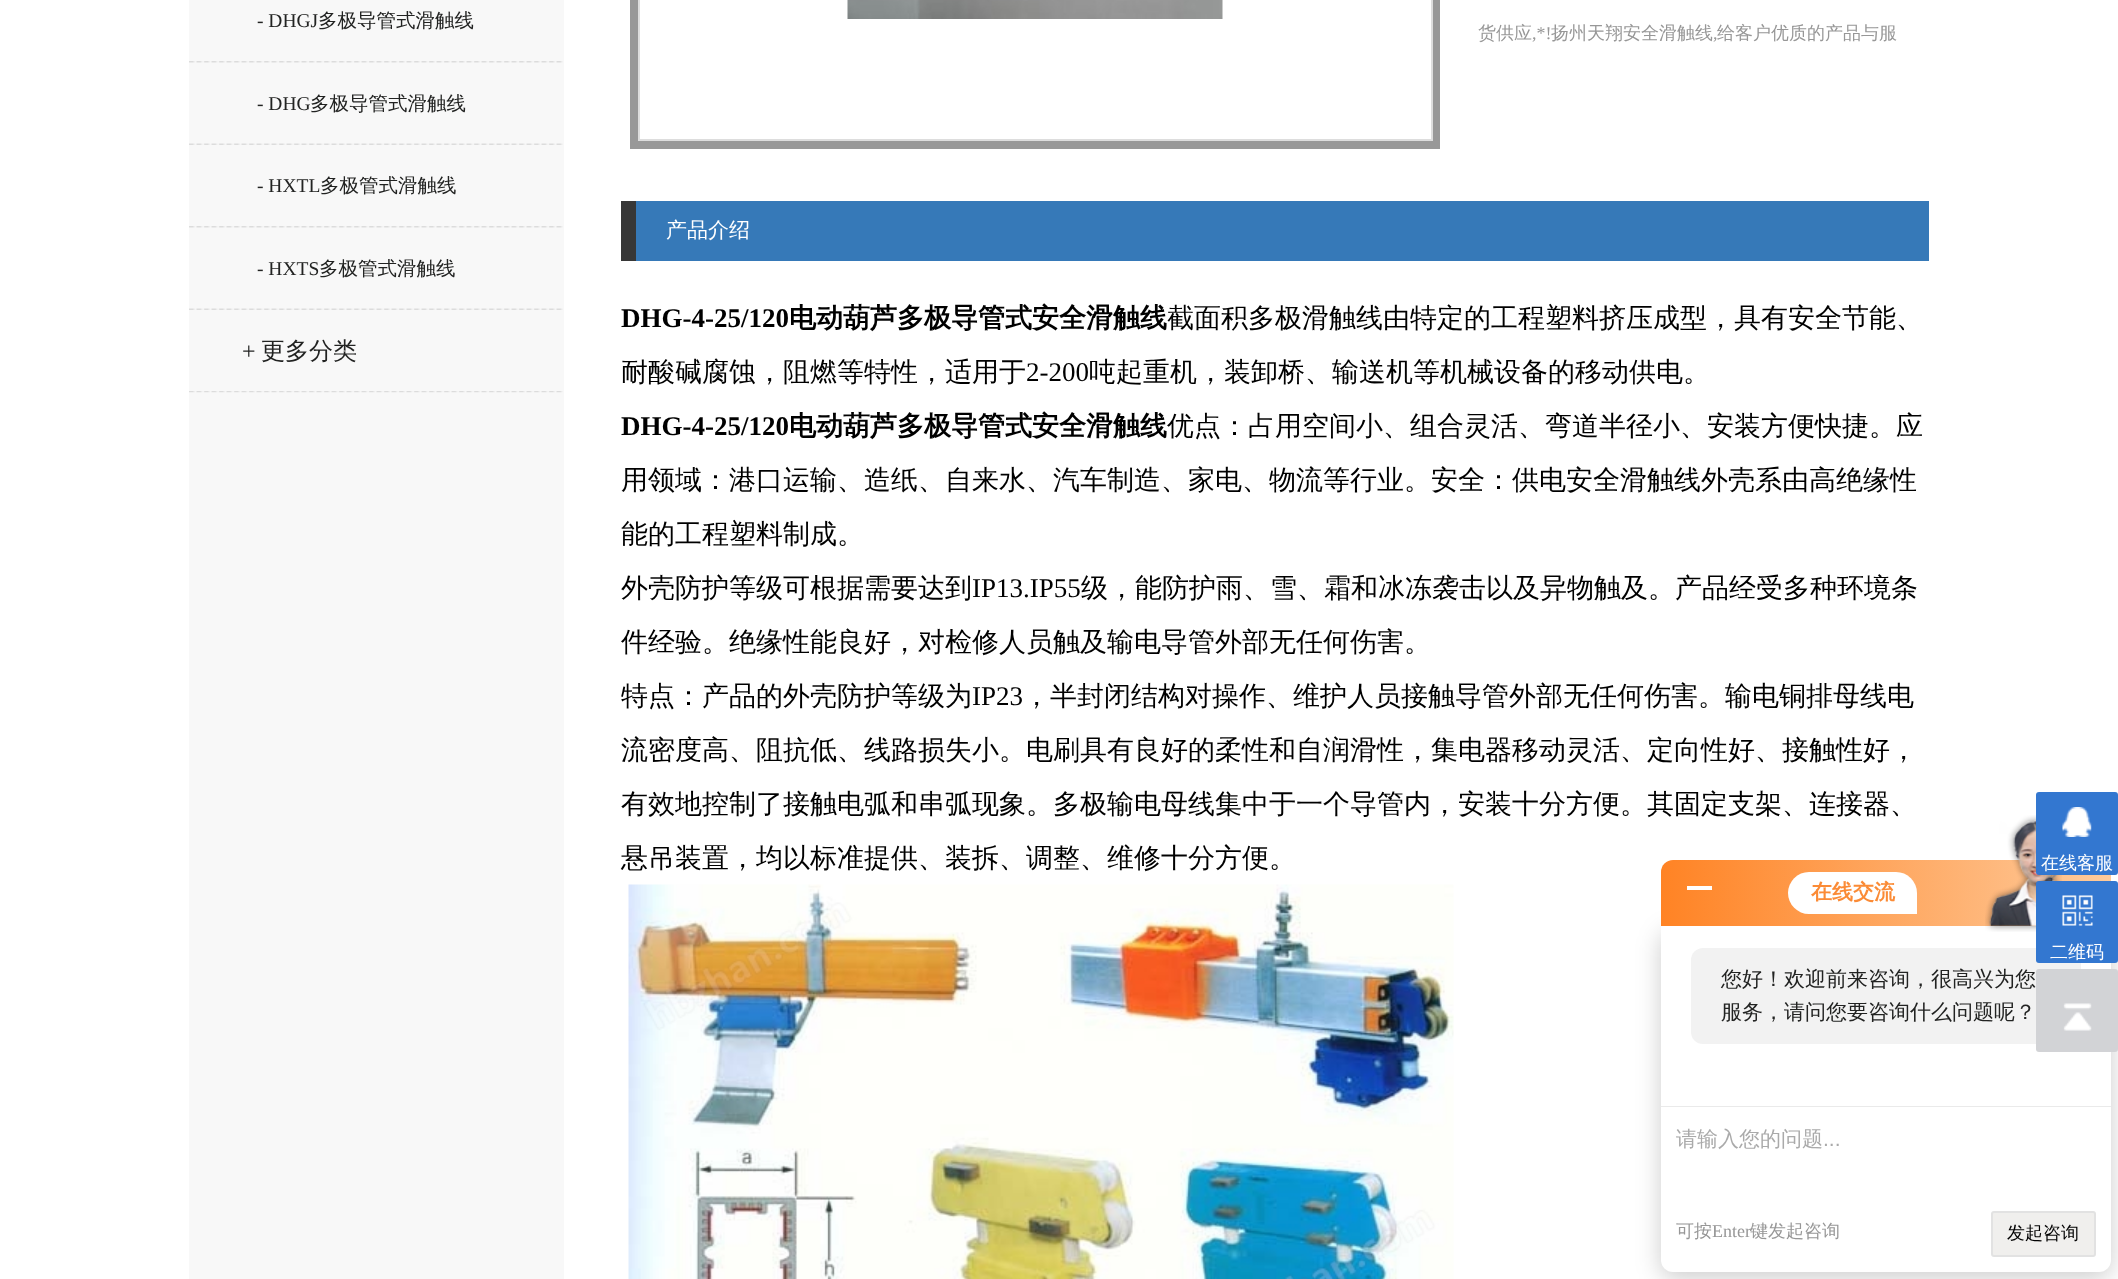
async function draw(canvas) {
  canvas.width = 2118
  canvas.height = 1279
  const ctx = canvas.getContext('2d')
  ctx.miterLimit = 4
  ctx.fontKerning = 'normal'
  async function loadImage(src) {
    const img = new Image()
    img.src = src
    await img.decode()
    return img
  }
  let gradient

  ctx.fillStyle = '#fff'
  ctx.fillRect(0, 0, 2118, 1279)
  ctx.fillStyle = '#f8f8f8'
  ctx.fillRect(189, 0, 375, 1279)
  ctx.drawImage(await loadImage('image0.png'), 189, 61, 374, 2)
  ctx.font = '19.5px Liberation Serif'
  ctx.fillStyle = '#222322'
  ctx.fillText('- DHGJ', 257, 27)
  ctx.font = '500 19.5px WenQuanYi Zen Hei'
  ctx.fillText('多极导管式滑触线', 318, 27)
  ctx.drawImage(await loadImage('image1.png'), 189, 143, 374, 2)
  ctx.font = '19.5px Liberation Serif'
  ctx.fillText('- DHG', 257, 110)
  ctx.font = '500 19.5px WenQuanYi Zen Hei'
  ctx.fillText('多极导管式滑触线', 310, 110)
  ctx.drawImage(await loadImage('image0.png'), 189, 226, 374, 2)
  ctx.font = '19.5px Liberation Serif'
  ctx.fillText('- HXTL', 257, 192)
  ctx.font = '500 19.5px WenQuanYi Zen Hei'
  ctx.fillText('多极管式滑触线', 320, 192)
  ctx.drawImage(await loadImage('image1.png'), 189, 308, 374, 2)
  ctx.font = '19.5px Liberation Serif'
  ctx.fillText('- HXTS', 257, 275)
  ctx.font = '500 19.5px WenQuanYi Zen Hei'
  ctx.fillText('多极管式滑触线', 319, 275)
  ctx.drawImage(await loadImage('image2.png'), 189, 391, 374, 2)
  ctx.font = '24px Liberation Serif'
  ctx.fillText('+', 242, 359)
  ctx.font = '500 24px WenQuanYi Zen Hei'
  ctx.fillText('更多分类', 261, 359)
  ctx.strokeStyle = '#989898'
  ctx.lineWidth = 8
  ctx.strokeRect(634, -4, 802, 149)
  ctx.strokeStyle = '#ddd'
  ctx.lineWidth = 2
  ctx.strokeRect(639, -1, 793, 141)
  ctx.drawImage(await loadImage('image3.png'), 847, 0, 376, 19)
  ctx.font = '500 18px WenQuanYi Zen Hei'
  ctx.fillStyle = '#979797'
  ctx.fillText('货供应', 1478, 39)
  ctx.font = '18px Liberation Serif'
  ctx.fillText(',*!', 1532, 39)
  ctx.font = '500 18px WenQuanYi Zen Hei'
  ctx.fillText('扬州天翔安全滑触线', 1551, 39)
  ctx.font = '18px Liberation Serif'
  ctx.fillText(',', 1713, 39)
  ctx.font = '500 18px WenQuanYi Zen Hei'
  ctx.fillText('给客户优质的产品与服', 1717, 39)
  ctx.fillStyle = '#3679b8'
  ctx.fillRect(636, 201, 1293, 60)
  ctx.fillStyle = '#373737'
  ctx.fillRect(621, 201, 15, 60)
  ctx.font = '500 21px WenQuanYi Zen Hei'
  ctx.fillStyle = '#fff'
  ctx.fillText('产品介绍', 666, 237)
  ctx.font = 'bold 27px Liberation Serif'
  ctx.fillStyle = '#000'
  ctx.fillText('DHG-4-25/120', 621, 327)
  ctx.font = 'bold 27px WenQuanYi Zen Hei'
  ctx.fillText('电动葫芦多极导管式安全滑触线', 789, 327)
  ctx.font = '500 27px WenQuanYi Zen Hei'
  ctx.fillText('截面积多极滑触线由特定的工程塑料挤压成型，具有安全节能、', 1167, 327)
  ctx.fillText('耐酸碱腐蚀，阻燃等特性，适用于', 621, 381)
  ctx.font = '27px Liberation Serif'
  ctx.fillText('2-200', 1026, 381)
  ctx.font = '500 27px WenQuanYi Zen Hei'
  ctx.fillText('吨起重机，装卸桥、输送机等机械设备的移动供电。', 1089, 381)
  ctx.font = 'bold 27px Liberation Serif'
  ctx.fillText('DHG-4-25/120', 621, 435)
  ctx.font = 'bold 27px WenQuanYi Zen Hei'
  ctx.fillText('电动葫芦多极导管式安全滑触线', 789, 435)
  ctx.font = '500 27px WenQuanYi Zen Hei'
  ctx.fillText('优点：占用空间小、组合灵活、弯道半径小、安装方便快捷。应', 1167, 435)
  ctx.fillText('用领域：港口运输、造纸、自来水、汽车制造、家电、物流等行业。安全：供电安全滑触线外壳系由高绝缘性', 621, 489)
  ctx.fillText('能的工程塑料制成。', 621, 543)
  ctx.fillText('外壳防护等级可根据需要达到', 621, 597)
  ctx.font = '27px Liberation Serif'
  ctx.fillText('IP13.IP55', 972, 597)
  ctx.font = '500 27px WenQuanYi Zen Hei'
  ctx.fillText('级，能防护雨、雪、霜和冰冻袭击以及异物触及。产品经受多种环境条', 1081, 597)
  ctx.fillText('件经验。绝缘性能良好，对检修人员触及输电导管外部无任何伤害。', 621, 651)
  ctx.fillText('特点：产品的外壳防护等级为', 621, 705)
  ctx.font = '27px Liberation Serif'
  ctx.fillText('IP23', 972, 705)
  ctx.font = '500 27px WenQuanYi Zen Hei'
  ctx.fillText('，半封闭结构对操作、维护人员接触导管外部无任何伤害。输电铜排母线电', 1023, 705)
  ctx.fillText('流密度高、阻抗低、线路损失小。电刷具有良好的柔性和自润滑性，集电器移动灵活、定向性好、接触性好，', 621, 759)
  ctx.fillText('有效地控制了接触电弧和串弧现象。多极输电母线集中于一个导管内，安装十分方便。其固定支架、连接器、', 621, 813)
  ctx.fillText('悬吊装置，均以标准提供、装拆、调整、维修十分方便。', 621, 867)
  ctx.drawImage(await loadImage('image4.png'), 628, 884, 826, 395)
  ctx.fillStyle = '#00000033'
  ctx.filter = 'blur(12px)'
  ctx.beginPath()
  ctx.roundRect(1661, 932, 450, 346, 12)
  ctx.fill()
  ctx.filter = 'none'
  gradient = ctx.createLinearGradient(1661, 893, 2111, 893)
  gradient.addColorStop(0, '#ff8324')
  gradient.addColorStop(1, '#fecb9c')
  ctx.fillStyle = gradient
  ctx.beginPath()
  ctx.roundRect(1661, 860, 450, 66, [12, 12, 0, 0])
  ctx.fill()
  ctx.fillStyle = '#fff'
  ctx.beginPath()
  ctx.roundRect(1661, 926, 450, 346, [0, 0, 12, 12])
  ctx.fill()
  ctx.drawImage(await loadImage('image8.png'), 1985, 815, 77, 117)
  ctx.fillStyle = '#3377d0'
  ctx.beginPath()
  ctx.roundRect(2036, 792, 82, 83, 3)
  ctx.fill()
  ctx.drawImage(await loadImage('image5.png'), 2062, 807, 30, 30)
  ctx.font = '500 18px WenQuanYi Zen Hei'
  ctx.fillStyle = '#fff'
  ctx.fillText('在线客服', 2041, 869)
  ctx.fillStyle = '#f2f2f2'
  ctx.beginPath()
  ctx.roundRect(1691, 948, 390, 96, 12)
  ctx.fill()
  ctx.fillStyle = '#3377d0'
  ctx.beginPath()
  ctx.roundRect(2036, 881, 82, 82, 3)
  ctx.fill()
  ctx.drawImage(await loadImage('image6.png'), 2062, 895, 31, 31)
  ctx.fillStyle = '#fff'
  ctx.fillText('二维码', 2050, 958)
  ctx.fillStyle = '#d2d3d6'
  ctx.beginPath()
  ctx.roundRect(2036, 969, 82, 83, 3)
  ctx.fill()
  ctx.drawImage(await loadImage('image7.png'), 2063, 1003, 29, 28)
  ctx.fillStyle = '#fff'
  ctx.fillRect(1687, 886, 25, 4)
  ctx.beginPath()
  ctx.roundRect(1788, 872, 129, 42, [21, 21, 0, 21])
  ctx.fill()
  ctx.font = 'bold 21px WenQuanYi Zen Hei'
  ctx.fillStyle = '#fb8b36'
  ctx.fillText('在线交流', 1811, 899)
  ctx.font = '500 21px WenQuanYi Zen Hei'
  ctx.fillStyle = '#222322'
  ctx.fillText('您好！欢迎前来咨询，很高兴为您', 1721, 986)
  ctx.fillText('服务，请问您要咨询什么问题呢？', 1721, 1019)
  ctx.fillStyle = '#eaeaea'
  ctx.fillRect(1661, 1106, 450, 1)
  ctx.fillStyle = '#aaa'
  ctx.fillText('请输入您的问题', 1676, 1146)
  ctx.font = '21px Liberation Sans'
  ctx.fillText('...', 1823, 1146)
  ctx.font = '500 18px WenQuanYi Zen Hei'
  ctx.fillStyle = '#979797'
  ctx.fillText('可按', 1676, 1237)
  ctx.font = '18px Liberation Serif'
  ctx.fillText('Enter', 1712, 1237)
  ctx.font = '500 18px WenQuanYi Zen Hei'
  ctx.fillText('键发起咨询', 1750, 1237)
  ctx.fillStyle = '#f0efed'
  ctx.beginPath()
  ctx.roundRect(1992, 1212, 103, 44, 2)
  ctx.fill()
  ctx.strokeStyle = '#e2e2e2'
  ctx.stroke()
  ctx.fillStyle = '#000'
  ctx.fillText('发起咨询', 2007, 1239)
}

draw(document.querySelector('canvas'))
